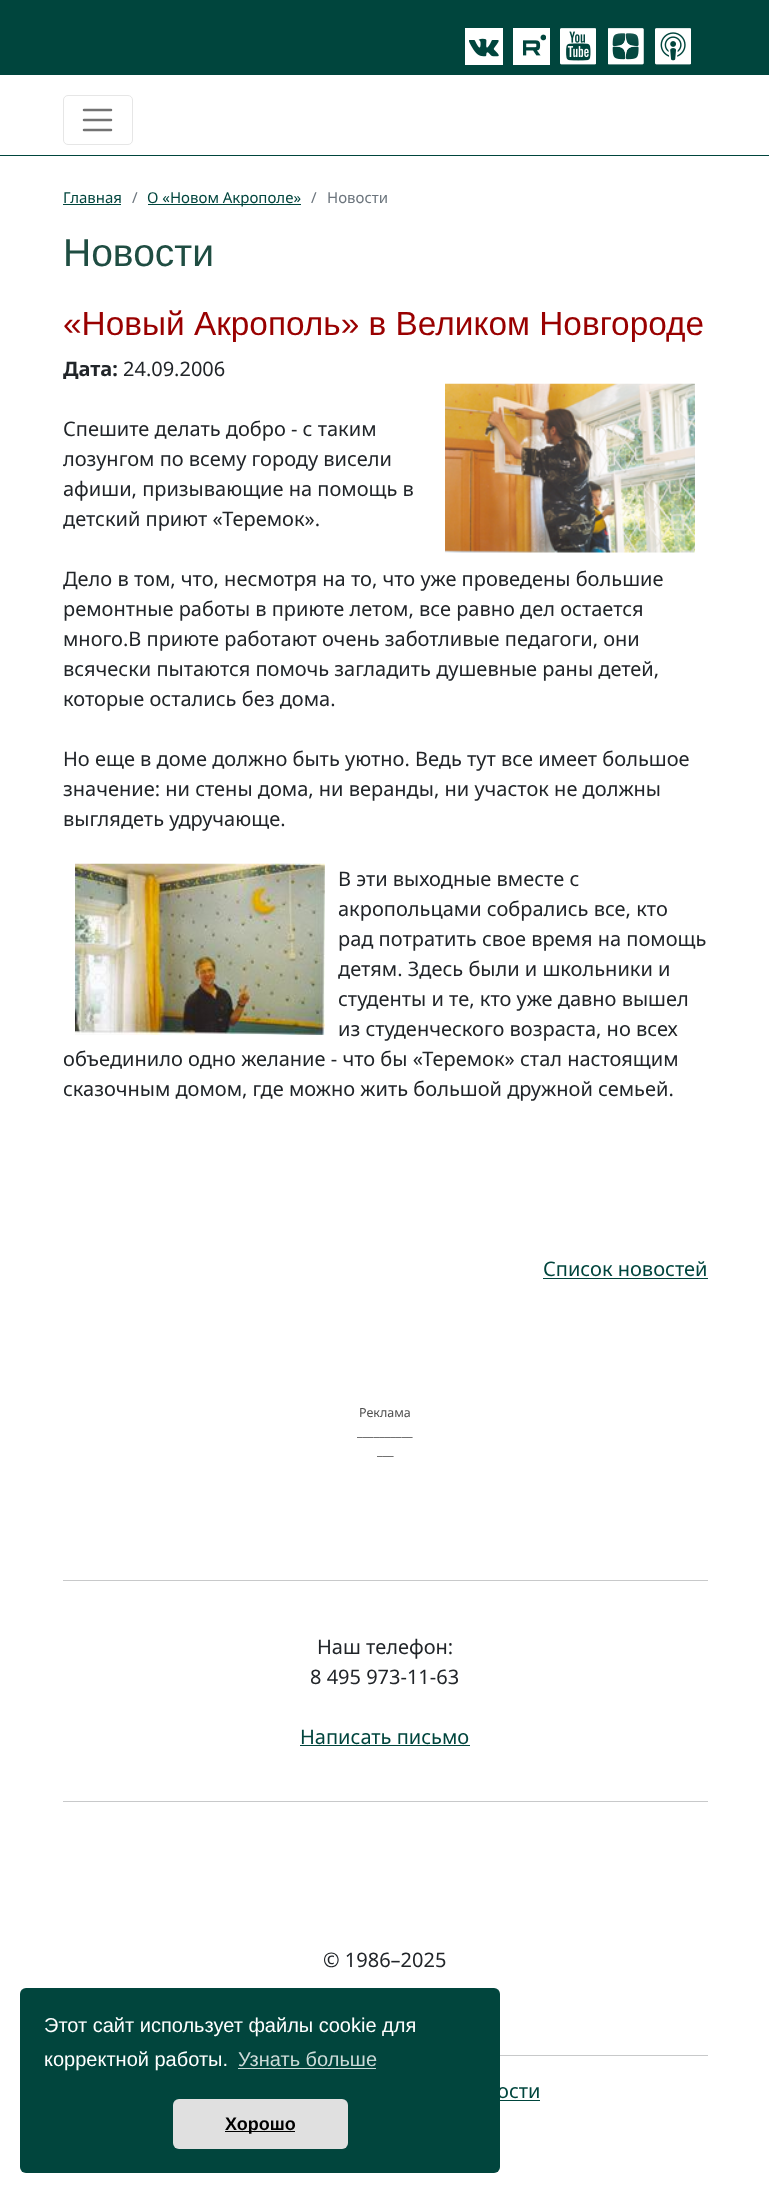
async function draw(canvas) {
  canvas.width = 769
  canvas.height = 2192
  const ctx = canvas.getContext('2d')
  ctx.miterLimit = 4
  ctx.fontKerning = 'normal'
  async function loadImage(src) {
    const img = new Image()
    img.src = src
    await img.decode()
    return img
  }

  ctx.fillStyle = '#fff'
  ctx.fillRect(0, 0, 769, 2192)
  ctx.fillStyle = '#00453d'
  ctx.fillRect(0, 0, 769, 75)
  ctx.fillStyle = '#fff'
  ctx.fillRect(465, 28, 38, 37)
  ctx.drawImage(await loadImage('image0.png'), 469, 38, 30, 19)
  ctx.fillRect(513, 28, 37, 37)
  ctx.drawImage(await loadImage('image1.png'), 523, 34, 23, 22)
  ctx.drawImage(await loadImage('image2.png'), 560, 28, 36, 37)
  ctx.drawImage(await loadImage('image3.png'), 608, 28, 36, 37)
  ctx.drawImage(await loadImage('image4.png'), 655, 28, 36, 37)
  ctx.fillStyle = '#00453d'
  ctx.fillRect(0, 155, 769, 1)
  ctx.beginPath()
  ctx.roundRect(63.5, 95.5, 69, 49, 4.5)
  ctx.strokeStyle = '#e6e6e6'
  ctx.stroke()
  ctx.beginPath()
  ctx.moveTo(84, 110)
  ctx.lineTo(111, 110)
  ctx.moveTo(84, 120)
  ctx.lineTo(111, 120)
  ctx.moveTo(84, 130)
  ctx.lineTo(111, 130)
  ctx.strokeStyle = '#737373'
  ctx.lineWidth = 2.5
  ctx.lineCap = 'round'
  ctx.stroke()
  ctx.font = '15px Noto Sans'
  ctx.fillText('Главная', 63, 203)
  ctx.fillRect(63, 204, 58, 1)
  ctx.fillStyle = '#6c757d'
  ctx.fillText('/', 132, 203)
  ctx.fillStyle = '#00453d'
  ctx.fillRect(148, 204, 153, 1)
  ctx.fillText('О «Новом Акрополе»', 147, 203)
  ctx.fillStyle = '#6c757d'
  ctx.fillText('/', 311, 203)
  ctx.fillText('Новости', 327, 203)
  ctx.font = '39px Liberation Sans'
  ctx.fillStyle = '#1f4d42'
  ctx.fillText('Новости', 63, 266)
  ctx.font = '33.4px Liberation Sans'
  ctx.fillStyle = '#900'
  ctx.fillText('«Новый Акрополь» в Великом Новгороде', 63, 335)
  ctx.font = 'bold 20px Noto Sans'
  ctx.fillStyle = '#212529'
  ctx.fillText('Дата:', 63, 376)
  ctx.font = '20px Noto Sans'
  ctx.fillText('24.09.2006', 123, 376)
  ctx.fillText('Спешите делать добро - с таким', 63, 436)
  ctx.drawImage(await loadImage('image5.png'), 445, 383, 250, 170)
  ctx.fillText('лозунгом по всему городу висели', 63, 466)
  ctx.fillText('афиши, призывающие на помощь в', 63, 496)
  ctx.fillText('детский приют «Теремок».', 63, 526)
  ctx.fillText('Дело в том, что, несмотря на то, что уже проведены большие', 63, 586)
  ctx.fillText('ремонтные работы в приюте летом, все равно дел остается', 63, 616)
  ctx.fillText('много.В приюте работают очень заботливые педагоги, они', 63, 646)
  ctx.fillText('всячески пытаются помочь загладить душевные раны детей,', 63, 676)
  ctx.fillText('которые остались без дома.', 63, 706)
  ctx.fillText('Но еще в доме должно быть уютно. Ведь тут все имеет большое', 63, 766)
  ctx.fillText('значение: ни стены дома, ни веранды, ни участок не должны', 63, 796)
  ctx.fillText('выглядеть удручающе.', 63, 826)
  ctx.drawImage(await loadImage('image6.png'), 75, 863, 250, 172)
  ctx.fillText('В эти выходные вместе с', 338, 886)
  ctx.fillText('акропольцами собрались все, кто', 338, 916)
  ctx.fillText('рад потратить свое время на помощь', 338, 946)
  ctx.fillText('детям. Здесь были и школьники и', 338, 976)
  ctx.fillText('студенты и те, кто уже давно вышел', 338, 1006)
  ctx.fillText('из студенческого возраста, но всех', 338, 1036)
  ctx.fillText('объединило одно желание - что бы «Теремок» стал настоящим', 63, 1066)
  ctx.fillText('сказочным домом, где можно жить большой дружной семьей.', 63, 1096)
  ctx.fillStyle = '#00453d'
  ctx.fillText('Список новостей', 543, 1276)
  ctx.fillRect(543, 1278, 165, 1)
  ctx.font = '12.5px Noto Sans'
  ctx.fillStyle = '#505050'
  ctx.fillText('Реклама', 359, 1417)
  ctx.fillText('__________', 357, 1436)
  ctx.fillText('___', 377, 1455)
  ctx.fillStyle = '#c8c9ca'
  ctx.fillRect(63, 1580, 645, 1)
  ctx.font = '20px Noto Sans'
  ctx.fillStyle = '#212529'
  ctx.fillText('Наш телефон:', 317, 1654)
  ctx.fillText('8 495 973-11-63', 310, 1684)
  ctx.fillStyle = '#00453d'
  ctx.fillText('Написать письмо', 300, 1744)
  ctx.fillRect(300, 1745, 170, 1)
  ctx.fillStyle = '#c8c9ca'
  ctx.fillRect(63, 1801, 645, 1)
  ctx.fillStyle = '#212529'
  ctx.fillText('© 1986–2025', 323, 1967)
  ctx.fillStyle = '#c8c9ca'
  ctx.fillRect(500, 2055, 208, 1)
  ctx.fillStyle = '#00453d'
  ctx.fillText('ости', 497, 2098)
  ctx.fillRect(500, 2100, 40, 1)
  ctx.fillStyle = '#01453d'
  ctx.beginPath()
  ctx.roundRect(20, 1988, 480, 185, 6)
  ctx.fill()
  ctx.font = '20px Liberation Sans'
  ctx.fillStyle = '#fff'
  ctx.fillText('Этот сайт использует файлы cookie для', 44, 2032)
  ctx.fillText('корректной работы.', 44, 2066)
  ctx.fillStyle = '#ccdad8'
  ctx.fillText('Узнать больше', 238, 2066)
  ctx.fillRect(238, 2068, 138, 1)
  ctx.fillStyle = '#e0e0e0'
  ctx.beginPath()
  ctx.roundRect(173, 2099, 175, 50, 6)
  ctx.fill()
  ctx.fillStyle = '#000'
  ctx.fillRect(225, 2131, 70, 1)
  ctx.font = 'bold 18px Liberation Sans'
  ctx.fillText('Хорошо', 225, 2130)
}

draw(document.querySelector('canvas'))
